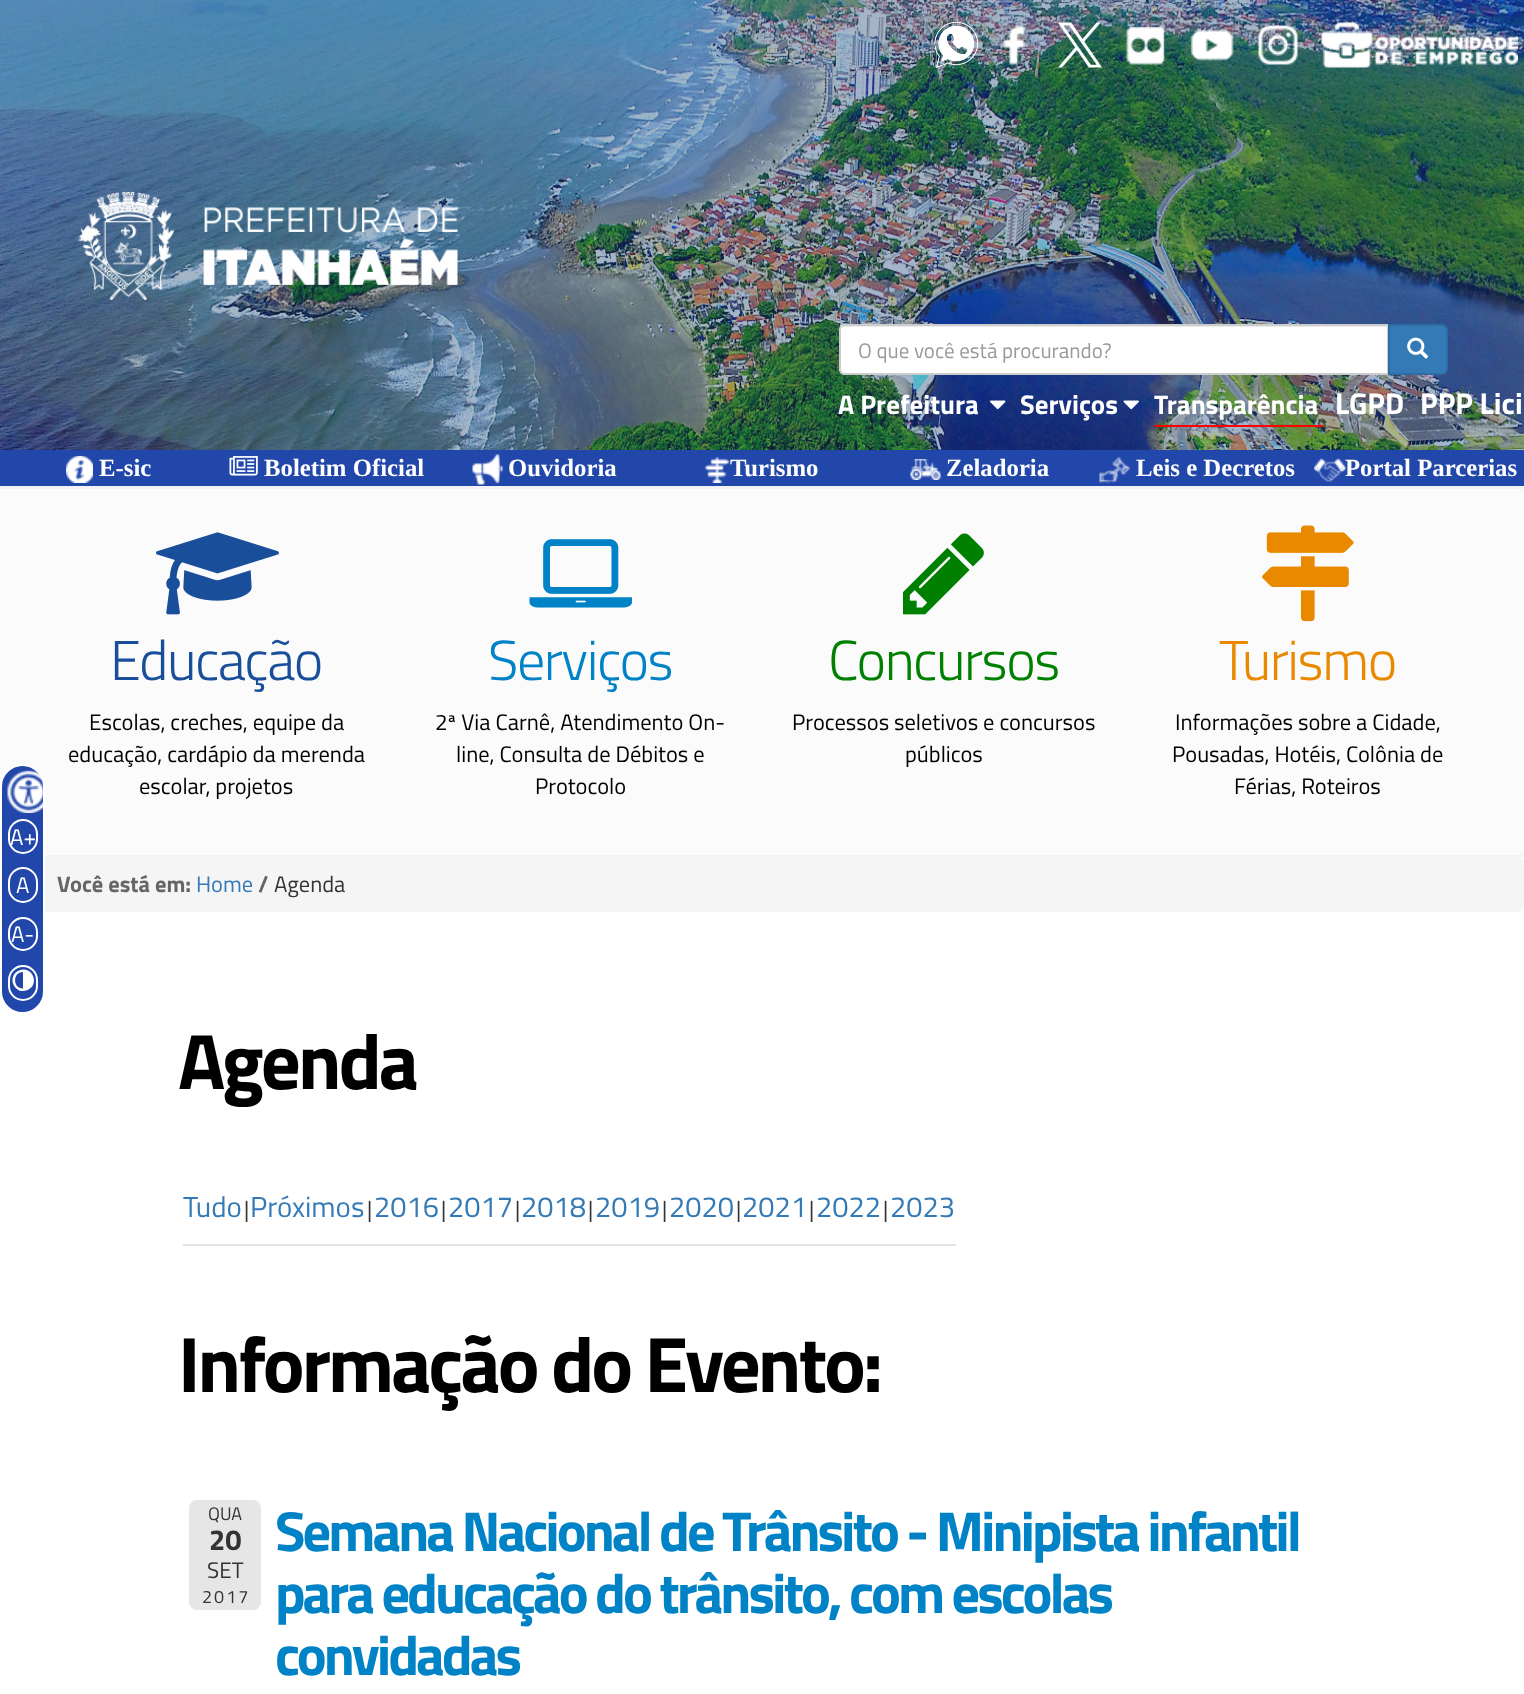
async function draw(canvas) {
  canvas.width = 1524
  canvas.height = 1694
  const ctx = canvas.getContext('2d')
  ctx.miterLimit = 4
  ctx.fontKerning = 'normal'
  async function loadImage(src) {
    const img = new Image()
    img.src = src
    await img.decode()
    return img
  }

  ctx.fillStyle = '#fff'
  ctx.fillRect(0, 0, 1524, 1694)
  ctx.drawImage(await loadImage('image0.png'), 0, 0, 1524, 450)
  ctx.drawImage(await loadImage('image1.png'), 934, 21, 44, 48)
  ctx.drawImage(await loadImage('image2.png'), 1003, 25, 22, 40)
  ctx.drawImage(await loadImage('image3.png'), 1058, 22, 45, 46)
  ctx.drawImage(await loadImage('image4.png'), 1126, 26, 39, 39)
  ctx.drawImage(await loadImage('image5.png'), 1190, 29, 44, 32)
  ctx.drawImage(await loadImage('image6.png'), 1258, 25, 40, 40)
  ctx.drawImage(await loadImage('image7.png'), 1321, 22, 197, 46)
  ctx.drawImage(await loadImage('image8.png'), 77, 192, 381, 108)
  ctx.beginPath()
  ctx.roundRect(839, 324, 550, 51, [6, 0, 0, 6])
  ctx.fill()
  ctx.fillStyle = '#ececec'
  ctx.beginPath()
  ctx.moveTo(844, 327)
  ctx.lineTo(1388, 327)
  ctx.lineTo(1388, 326)
  ctx.lineTo(845, 326)
  ctx.bezierCurveTo(842, 326, 840, 329, 840, 332)
  ctx.bezierCurveTo(840, 329, 842, 327, 844, 327)
  ctx.closePath()
  ctx.fill()
  ctx.beginPath()
  ctx.roundRect(840, 325, 548, 49, [5, 0, 0, 5])
  ctx.strokeStyle = '#ccc'
  ctx.lineWidth = 2
  ctx.stroke()
  ctx.font = '21px Titillium Web'
  ctx.fillStyle = '#999'
  ctx.fillText('O que você está procurando?', 858, 358)
  ctx.fillStyle = '#337ab7'
  ctx.beginPath()
  ctx.roundRect(1389, 325, 58, 49, [0, 5, 5, 0])
  ctx.fill()
  ctx.strokeStyle = '#2e6da4'
  ctx.stroke()
  ctx.drawImage(await loadImage('image9.png'), 1407, 337, 22, 22)
  ctx.font = 'bold 27px Titillium Web'
  ctx.fillStyle = '#fff'
  ctx.fillText('A Prefeitura', 838, 414)
  ctx.drawImage(await loadImage('image10.png'), 990, 400, 16, 10)
  ctx.fillText('Serviços', 1020, 414)
  ctx.drawImage(await loadImage('image11.png'), 1123, 400, 16, 10)
  ctx.fillStyle = '#f00'
  ctx.fillRect(1154, 425, 169, 2)
  ctx.fillStyle = '#fff'
  ctx.fillText('Transparência', 1154, 414)
  ctx.font = 'bold 30px Titillium Web'
  ctx.fillText('LGPD', 1335, 414)
  ctx.fillText('PPP Lici', 1420, 414)
  ctx.fillStyle = '#2247ab'
  ctx.fillRect(0, 450, 1524, 36)
  ctx.drawImage(await loadImage('image12.png'), 66, 456, 27, 27)
  ctx.font = 'bold 24.75px Liberation Serif'
  ctx.fillStyle = '#fff'
  ctx.fillText('E-sic', 99, 476)
  ctx.drawImage(await loadImage('image13.png'), 229, 456, 29, 20)
  ctx.fillText('Boletim Oficial', 264, 476)
  ctx.drawImage(await loadImage('image14.png'), 472, 454, 31, 31)
  ctx.fillText('Ouvidoria', 508, 476)
  ctx.drawImage(await loadImage('image15.png'), 705, 457, 24, 26)
  ctx.fillText('Turismo', 730, 476)
  ctx.drawImage(await loadImage('image16.png'), 910, 459, 31, 21)
  ctx.fillText('Zeladoria', 946, 476)
  ctx.drawImage(await loadImage('image17.png'), 1099, 457, 31, 26)
  ctx.fillText('Leis e Decretos', 1136, 476)
  ctx.drawImage(await loadImage('image18.png'), 1314, 458, 32, 24)
  ctx.fillText('Portal Parcerias', 1345, 476)
  ctx.fillStyle = '#fbfbfb'
  ctx.fillRect(0, 489, 1524, 366)
  ctx.fillStyle = '#f3f3f3'
  ctx.fillRect(0, 486, 1524, 3)
  ctx.fillRect(45, 855, 1479, 2)
  ctx.drawImage(await loadImage('image19.png'), 156, 532, 123, 83)
  ctx.letterSpacing = '-1.5px'
  ctx.font = '300 56.25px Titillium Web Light'
  ctx.fillStyle = '#184e9a'
  ctx.fillText('Educação', 110, 680)
  ctx.letterSpacing = '0px'
  ctx.font = '22.5px Titillium Web'
  ctx.fillStyle = '#000'
  ctx.fillText('Escolas, creches, equipe da', 89, 730)
  ctx.fillText('educação, cardápio da merenda', 68, 762)
  ctx.fillText('escolar, projetos', 139, 794)
  ctx.drawImage(await loadImage('image20.png'), 529, 539, 103, 69)
  ctx.letterSpacing = '-1.5px'
  ctx.font = '300 56.25px Titillium Web Light'
  ctx.fillStyle = '#0082c6'
  ctx.fillText('Serviços', 488, 680)
  ctx.letterSpacing = '0px'
  ctx.font = '22.5px Titillium Web'
  ctx.fillStyle = '#000'
  ctx.fillText('2ª Via Carnê, Atendimento On-', 435, 730)
  ctx.fillText('line, Consulta de Débitos e', 456, 762)
  ctx.fillText('Protocolo', 535, 794)
  ctx.drawImage(await loadImage('image21.png'), 903, 533, 81, 82)
  ctx.letterSpacing = '-1.5px'
  ctx.font = '300 56.25px Titillium Web Light'
  ctx.fillStyle = '#008000'
  ctx.fillText('Concursos', 828, 680)
  ctx.letterSpacing = '0px'
  ctx.font = '22.5px Titillium Web'
  ctx.fillStyle = '#000'
  ctx.fillText('Processos seletivos e concursos', 792, 730)
  ctx.fillText('públicos', 905, 762)
  ctx.drawImage(await loadImage('image22.png'), 1262, 525, 92, 97)
  ctx.letterSpacing = '-1.5px'
  ctx.font = '300 56.25px Titillium Web Light'
  ctx.fillStyle = '#e98900'
  ctx.fillText('Turismo', 1219, 680)
  ctx.letterSpacing = '0px'
  ctx.font = '22.5px Titillium Web'
  ctx.fillStyle = '#000'
  ctx.fillText('Informações sobre a Cidade,', 1175, 730)
  ctx.fillText('Pousadas, Hotéis, Colônia de', 1172, 762)
  ctx.fillText('Férias, Roteiros', 1234, 794)
  ctx.fillStyle = '#f5f5f5'
  ctx.beginPath()
  ctx.roundRect(0, 857, 1524, 55, 6)
  ctx.fill()
  ctx.fillStyle = '#2247ab'
  ctx.beginPath()
  ctx.roundRect(1, 765, 43, 248, 21.5)
  ctx.fill()
  ctx.strokeStyle = '#fff'
  ctx.stroke()
  ctx.drawImage(await loadImage('image23.png'), 7, 770, 38, 43)
  ctx.beginPath()
  ctx.roundRect(9, 820, 28, 33, 14)
  ctx.stroke()
  ctx.fillStyle = '#fff'
  ctx.fillText('A+', 10, 845)
  ctx.beginPath()
  ctx.roundRect(9, 868, 28, 34, 14)
  ctx.stroke()
  ctx.fillText('A', 16, 893)
  ctx.beginPath()
  ctx.roundRect(9, 918, 28, 32, 14)
  ctx.stroke()
  ctx.fillText('A-', 11, 942)
  ctx.beginPath()
  ctx.roundRect(9, 966, 28, 34, 14)
  ctx.stroke()
  ctx.beginPath()
  ctx.moveTo(19, 970.5)
  ctx.bezierCurveTo(32, 964.5, 40.5, 984.5, 27.5, 990)
  ctx.bezierCurveTo(14.5, 996, 6, 976, 19, 970.5)
  ctx.closePath()
  ctx.moveTo(23, 988.5)
  ctx.lineTo(23, 972)
  ctx.bezierCurveTo(12.5, 972, 12.5, 988.5, 23, 988.5)
  ctx.closePath()
  ctx.fill()
  ctx.font = 'bold 22.5px Titillium Web'
  ctx.fillStyle = '#666'
  ctx.fillText('Você está em:', 57, 892)
  ctx.font = '22.5px Titillium Web'
  ctx.fillStyle = '#337ab7'
  ctx.fillText('Home', 196, 892)
  ctx.font = 'bold 22.5px Titillium Web'
  ctx.fillStyle = '#666'
  ctx.fillText('/', 258, 892)
  ctx.font = '22.5px Titillium Web'
  ctx.fillStyle = '#333'
  ctx.fillText('Agenda', 274, 892)
  ctx.letterSpacing = '-3px'
  ctx.font = 'bold 78.75px Titillium Web'
  ctx.fillStyle = '#000'
  ctx.fillText('Agenda', 178, 1089)
  ctx.fillStyle = '#e3e3e3'
  ctx.fillRect(183, 1244, 773, 2)
  ctx.letterSpacing = '0px'
  ctx.font = '29px Titillium Web'
  ctx.fillStyle = '#337ab7'
  ctx.fillText('Tudo', 183, 1217)
  ctx.font = '22.5px Titillium Web'
  ctx.fillStyle = '#333'
  ctx.fillText('|', 244, 1217)
  ctx.font = '29px Titillium Web'
  ctx.fillStyle = '#337ab7'
  ctx.fillText('Próximos', 250, 1217)
  ctx.font = '22.5px Titillium Web'
  ctx.fillStyle = '#333'
  ctx.fillText('|', 367, 1217)
  ctx.font = '29px Titillium Web'
  ctx.fillStyle = '#337ab7'
  ctx.fillText('2016', 374, 1217)
  ctx.font = '22.5px Titillium Web'
  ctx.fillStyle = '#333'
  ctx.fillText('|', 441, 1217)
  ctx.font = '29px Titillium Web'
  ctx.fillStyle = '#337ab7'
  ctx.fillText('2017', 448, 1217)
  ctx.font = '22.5px Titillium Web'
  ctx.fillStyle = '#333'
  ctx.fillText('|', 515, 1217)
  ctx.font = '29px Titillium Web'
  ctx.fillStyle = '#337ab7'
  ctx.fillText('2018', 521, 1217)
  ctx.font = '22.5px Titillium Web'
  ctx.fillStyle = '#333'
  ctx.fillText('|', 588, 1217)
  ctx.font = '29px Titillium Web'
  ctx.fillStyle = '#337ab7'
  ctx.fillText('2019', 595, 1217)
  ctx.font = '22.5px Titillium Web'
  ctx.fillStyle = '#333'
  ctx.fillText('|', 662, 1217)
  ctx.font = '29px Titillium Web'
  ctx.fillStyle = '#337ab7'
  ctx.fillText('2020', 669, 1217)
  ctx.font = '22.5px Titillium Web'
  ctx.fillStyle = '#333'
  ctx.fillText('|', 736, 1217)
  ctx.font = '29px Titillium Web'
  ctx.fillStyle = '#337ab7'
  ctx.fillText('2021', 742, 1217)
  ctx.font = '22.5px Titillium Web'
  ctx.fillStyle = '#333'
  ctx.fillText('|', 809, 1217)
  ctx.font = '29px Titillium Web'
  ctx.fillStyle = '#337ab7'
  ctx.fillText('2022', 816, 1217)
  ctx.font = '22.5px Titillium Web'
  ctx.fillStyle = '#333'
  ctx.fillText('|', 883, 1217)
  ctx.font = '29px Titillium Web'
  ctx.fillStyle = '#337ab7'
  ctx.fillText('2023', 890, 1217)
  ctx.letterSpacing = '-3px'
  ctx.font = 'bold 78.75px Titillium Web'
  ctx.fillStyle = '#000'
  ctx.fillText('Informação do Evento:', 178, 1392)
  ctx.fillStyle = '#e6e6e6'
  ctx.beginPath()
  ctx.roundRect(189, 1500, 72, 110, 8)
  ctx.fill()
  ctx.letterSpacing = '0px'
  ctx.font = '18px Titillium Web'
  ctx.fillStyle = '#333'
  ctx.fillText('QUA', 208, 1520)
  ctx.font = 'bold 29px Titillium Web'
  ctx.fillText('20', 209, 1550)
  ctx.font = '22.5px Titillium Web'
  ctx.fillText('SET', 207, 1578)
  ctx.letterSpacing = '2px'
  ctx.font = '18px Titillium Web'
  ctx.fillText('2017', 202, 1603)
  ctx.letterSpacing = '-3px'
  ctx.font = 'bold 56.25px Titillium Web'
  ctx.fillStyle = '#0082c6'
  ctx.fillText('Semana Nacional de Trânsito - Minipista infantil', 275, 1551)
  ctx.fillText('para educação do trânsito, com escolas', 275, 1613)
  ctx.fillText('convidadas', 275, 1675)
}

draw(document.querySelector('canvas'))
